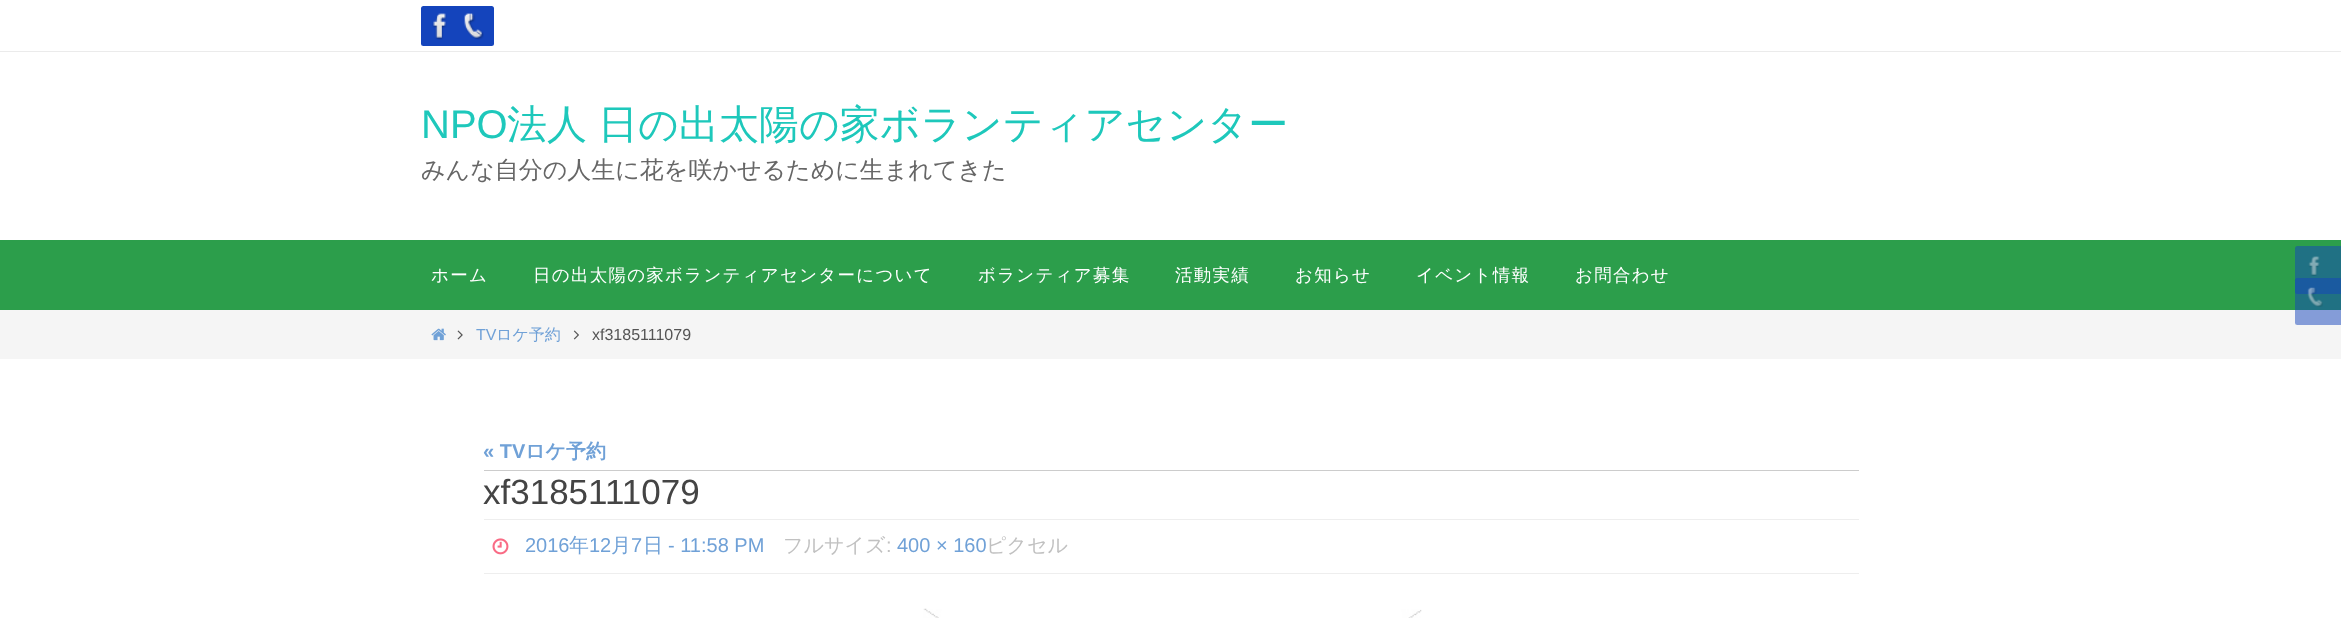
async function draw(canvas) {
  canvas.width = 2341
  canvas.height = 618
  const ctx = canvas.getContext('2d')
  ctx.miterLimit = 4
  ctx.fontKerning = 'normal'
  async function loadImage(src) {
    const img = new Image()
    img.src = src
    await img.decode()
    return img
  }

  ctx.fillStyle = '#fff'
  ctx.fillRect(0, 0, 2341, 618)
  ctx.fillStyle = '#ebebeb'
  ctx.fillRect(0, 51, 2341, 1)
  ctx.fillStyle = '#1444bc'
  ctx.beginPath()
  ctx.roundRect(421, 6, 40, 40, 2.5)
  ctx.fill()
  ctx.drawImage(await loadImage('image0.png'), 432, 13, 15, 27)
  ctx.beginPath()
  ctx.roundRect(454, 6, 40, 40, 2.5)
  ctx.fill()
  ctx.drawImage(await loadImage('image1.png'), 464, 13, 20, 27)
  ctx.font = '40px Liberation Sans'
  ctx.fillStyle = '#1ec8bb'
  ctx.fillText('NPO', 421, 138)
  ctx.wordSpacing = '-1px'
  ctx.font = '500 40px WenQuanYi Zen Hei'
  ctx.fillText('法人 日の出太陽の家ボランティアセンター', 507, 138)
  ctx.wordSpacing = '0px'
  ctx.font = '500 24px WenQuanYi Zen Hei'
  ctx.fillStyle = '#666'
  ctx.fillText('みんな自分の人生に花を咲かせるために生まれてきた', 421, 178)
  ctx.fillStyle = '#2c9e4b'
  ctx.fillRect(0, 240, 2341, 70)
  ctx.letterSpacing = '1.25px'
  ctx.font = '500 17.5px WenQuanYi Zen Hei'
  ctx.fillStyle = '#fff'
  ctx.fillText('ホーム', 431, 281)
  ctx.fillText('日の出太陽の家ボランティアセンターについて', 533, 281)
  ctx.fillText('ボランティア募集', 978, 281)
  ctx.fillText('活動実績', 1175, 281)
  ctx.fillText('お知らせ', 1295, 281)
  ctx.fillText('イベント情報', 1416, 281)
  ctx.fillText('お問合わせ', 1575, 281)
  ctx.fillStyle = '#207184'
  ctx.beginPath()
  ctx.roundRect(2295, 246, 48, 48, 2.5)
  ctx.fill()
  ctx.drawImage(await loadImage('image2.png'), 2308, 256, 12, 20)
  ctx.fillStyle = '#f5f5f5'
  ctx.fillRect(0, 310, 2341, 49)
  ctx.fillStyle = '#1444bc80'
  ctx.beginPath()
  ctx.roundRect(2295, 278, 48, 47, 2.5)
  ctx.fill()
  ctx.drawImage(await loadImage('image3.png'), 2307, 287, 16, 20)
  ctx.drawImage(await loadImage('image4.png'), 431, 328, 15, 13)
  ctx.drawImage(await loadImage('image5.png'), 457, 330, 6, 10)
  ctx.letterSpacing = '0px'
  ctx.font = '16px Liberation Sans'
  ctx.fillStyle = '#70a1d7'
  ctx.fillText('TV', 476, 340)
  ctx.font = '500 16px WenQuanYi Zen Hei'
  ctx.fillText('ロケ予約', 496, 340)
  ctx.drawImage(await loadImage('image6.png'), 573, 330, 6, 10)
  ctx.font = '16px Liberation Sans'
  ctx.fillStyle = '#555'
  ctx.fillText('xf3185111079', 592, 340)
  ctx.fillStyle = '#ccc'
  ctx.fillRect(484, 470, 1375, 1)
  ctx.font = 'bold 20px Liberation Sans'
  ctx.fillStyle = '#70a1d7'
  ctx.fillText('« TV', 483, 458)
  ctx.font = 'bold 20px WenQuanYi Zen Hei'
  ctx.fillText('ロケ予約', 525, 458)
  ctx.font = '35px Liberation Sans'
  ctx.fillStyle = '#444'
  ctx.fillText('xf3185111079', 483, 504)
  ctx.fillStyle = '#eee'
  ctx.fillRect(484, 519, 1375, 1)
  ctx.fillRect(484, 573, 1375, 1)
  ctx.drawImage(await loadImage('image7.png'), 492, 538, 17, 17)
  ctx.font = '20px Liberation Sans'
  ctx.fillStyle = '#70a1d7'
  ctx.fillText('2016', 525, 552)
  ctx.font = '500 20px WenQuanYi Zen Hei'
  ctx.fillText('年', 569, 552)
  ctx.font = '20px Liberation Sans'
  ctx.fillText('12', 589, 552)
  ctx.font = '500 20px WenQuanYi Zen Hei'
  ctx.fillText('月', 611, 552)
  ctx.font = '20px Liberation Sans'
  ctx.fillText('7', 631, 552)
  ctx.font = '500 20px WenQuanYi Zen Hei'
  ctx.fillText('日', 643, 552)
  ctx.font = '20px Liberation Sans'
  ctx.fillText('- 11:58 PM', 668, 552)
  ctx.font = '500 20px WenQuanYi Zen Hei'
  ctx.fillStyle = '#c1c1c1'
  ctx.fillText('フルサイズ', 783, 552)
  ctx.font = '20px Liberation Sans'
  ctx.fillText(':', 886, 552)
  ctx.fillStyle = '#70a1d7'
  ctx.fillText('400 × 160', 897, 552)
  ctx.font = '500 20px WenQuanYi Zen Hei'
  ctx.fillStyle = '#c1c1c1'
  ctx.fillText('ピクセル', 986, 552)
  ctx.drawImage(await loadImage('image8.png'), 923, 608, 499, 10)
}

draw(document.querySelector('canvas'))
